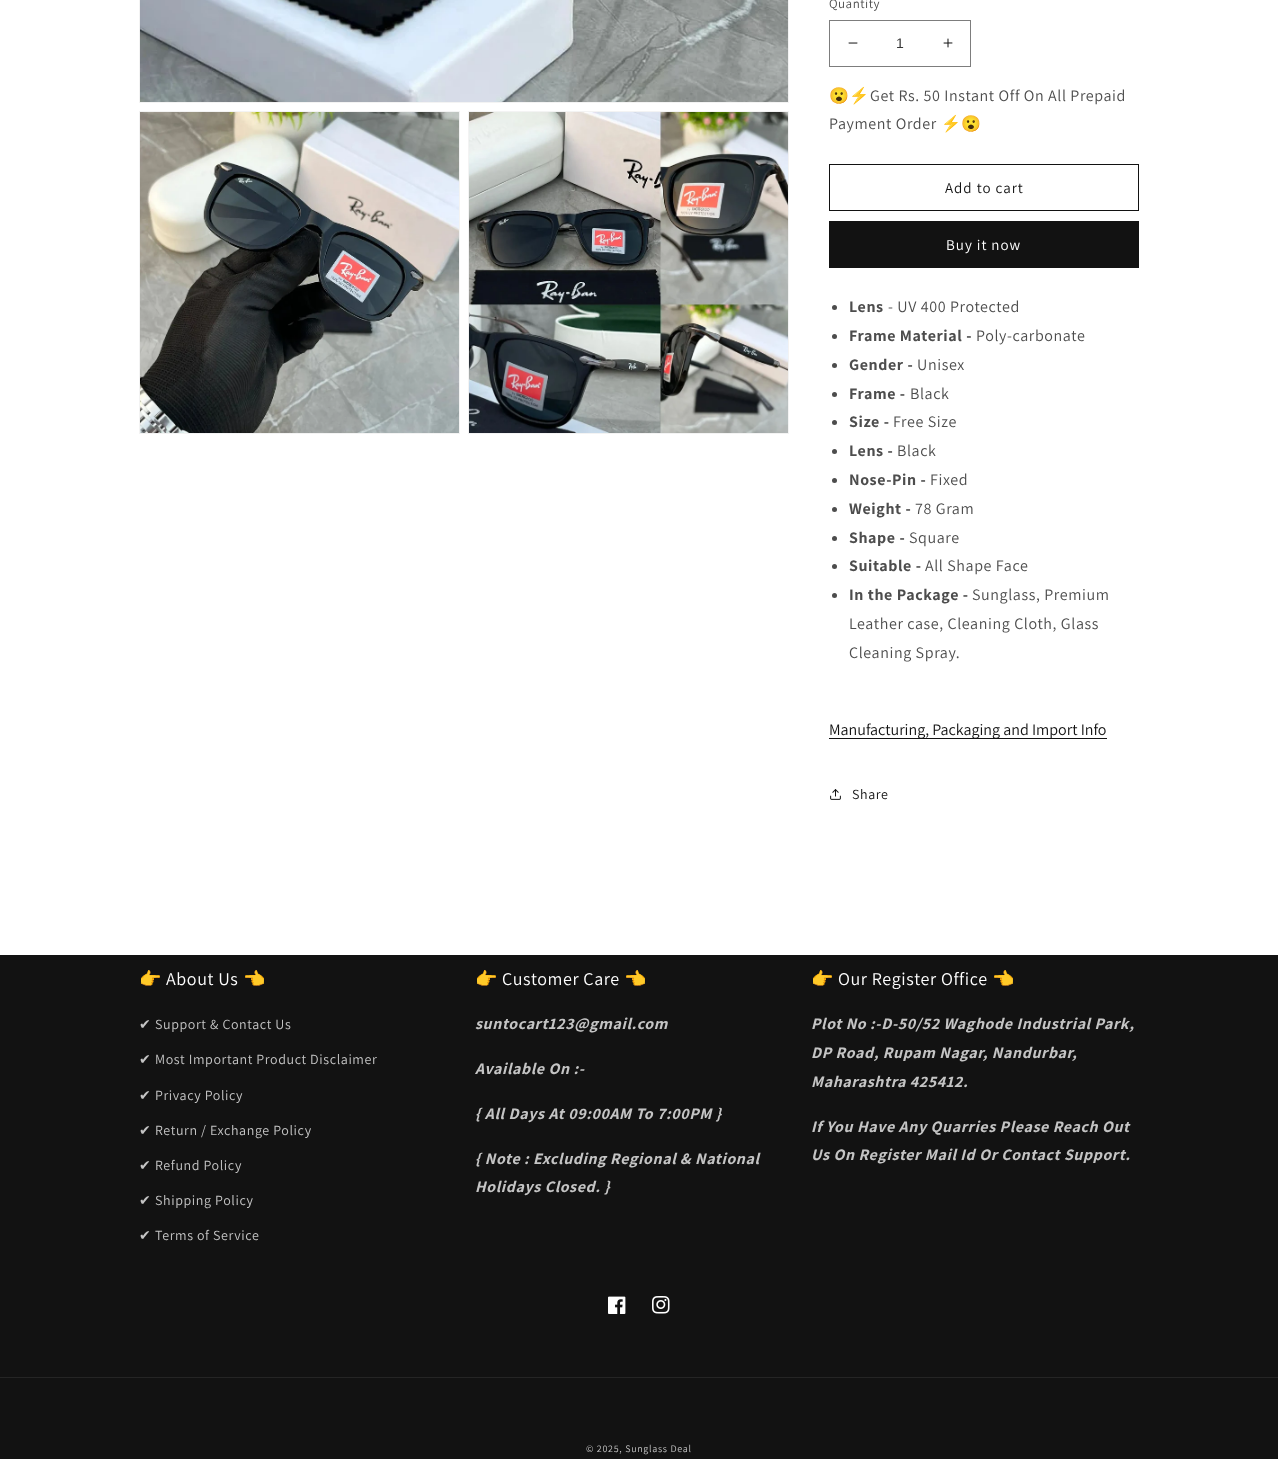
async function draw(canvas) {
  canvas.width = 1278
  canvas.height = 1459
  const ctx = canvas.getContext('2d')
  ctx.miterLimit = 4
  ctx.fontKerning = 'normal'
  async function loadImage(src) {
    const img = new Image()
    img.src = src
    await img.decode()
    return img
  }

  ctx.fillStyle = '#fff'
  ctx.fillRect(0, 0, 1278, 1459)
  ctx.strokeStyle = '#f3f3f3'
  ctx.strokeRect(139.5, -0.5, 649, 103)
  ctx.drawImage(await loadImage('image0.png'), 140, 0, 648, 102)
  ctx.strokeRect(139.5, 111.5, 320, 322)
  ctx.drawImage(await loadImage('image1.png'), 140, 112, 319, 321)
  ctx.strokeRect(468.5, 111.5, 320, 322)
  ctx.drawImage(await loadImage('image2.png'), 469, 112, 319, 321)
  ctx.letterSpacing = '0.5px'
  ctx.font = '13px Assistant'
  ctx.fillStyle = '#4d4d4d'
  ctx.fillText('Quantity', 829, 8)
  ctx.drawImage(await loadImage('image3.png'), 848, 42, 10, 2)
  ctx.drawImage(await loadImage('image4.png'), 943, 38, 10, 10)
  ctx.strokeStyle = '#7d7d7d'
  ctx.strokeRect(829.5, 20.5, 141, 46)
  ctx.letterSpacing = '0px'
  ctx.font = '14px Liberation Sans'
  ctx.fillStyle = '#363636'
  ctx.fillText('1', 896, 48)
  ctx.letterSpacing = '0.6px'
  ctx.font = '16px Noto Color Emoji'
  ctx.fillStyle = '#4d4d4d'
  ctx.fillText('😮⚡', 829, 101)
  ctx.font = '16px Assistant'
  ctx.fillText('Get Rs. 50 Instant Off On All Prepaid', 870, 101)
  ctx.fillText('Payment Order', 829, 129)
  ctx.font = '16px Noto Color Emoji'
  ctx.fillText('⚡😮', 941, 129)
  ctx.strokeStyle = '#121212'
  ctx.strokeRect(829.5, 164.5, 309, 46)
  ctx.letterSpacing = '1px'
  ctx.font = '15px Assistant'
  ctx.fillStyle = '#121212'
  ctx.fillText('Add to cart', 945, 193)
  ctx.fillRect(829, 221, 310, 47)
  ctx.fillStyle = '#fff'
  ctx.fillText('Buy it now', 946, 250)
  ctx.fillStyle = '#4d4d4d'
  ctx.beginPath()
  ctx.arc(834.5, 307.5, 2.5, 0, 2 * Math.PI)
  ctx.fill()
  ctx.letterSpacing = '0.6px'
  ctx.font = 'bold 16px Assistant'
  ctx.fillText('Lens', 849, 312)
  ctx.font = '16px Assistant'
  ctx.fillText('- UV 400 Protected', 888, 312)
  ctx.beginPath()
  ctx.arc(834.5, 336.5, 2.5, 0, 2 * Math.PI)
  ctx.fill()
  ctx.font = 'bold 16px Assistant'
  ctx.fillText('Frame Material -', 849, 341)
  ctx.font = '16px Assistant'
  ctx.fillText('Poly-carbonate', 976, 341)
  ctx.beginPath()
  ctx.arc(834.5, 365.5, 2.5, 0, 2 * Math.PI)
  ctx.fill()
  ctx.font = 'bold 16px Assistant'
  ctx.fillText('Gender -', 849, 370)
  ctx.font = '16px Assistant'
  ctx.fillText('Unisex', 917, 370)
  ctx.beginPath()
  ctx.arc(834.5, 394.5, 2.5, 0, 2 * Math.PI)
  ctx.fill()
  ctx.font = 'bold 16px Assistant'
  ctx.fillText('Frame -', 849, 399)
  ctx.font = '16px Assistant'
  ctx.fillText('Black', 910, 399)
  ctx.beginPath()
  ctx.arc(834.5, 422.5, 2.5, 0, 2 * Math.PI)
  ctx.fill()
  ctx.font = 'bold 16px Assistant'
  ctx.fillText('Size -', 849, 427)
  ctx.font = '16px Assistant'
  ctx.fillText('Free Size', 893, 427)
  ctx.beginPath()
  ctx.arc(834.5, 451.5, 2.5, 0, 2 * Math.PI)
  ctx.fill()
  ctx.font = 'bold 16px Assistant'
  ctx.fillText('Lens -', 849, 456)
  ctx.font = '16px Assistant'
  ctx.fillText('Black', 897, 456)
  ctx.beginPath()
  ctx.arc(834.5, 480.5, 2.5, 0, 2 * Math.PI)
  ctx.fill()
  ctx.font = 'bold 16px Assistant'
  ctx.fillText('Nose-Pin -', 849, 485)
  ctx.font = '16px Assistant'
  ctx.fillText('Fixed', 930, 485)
  ctx.beginPath()
  ctx.arc(834.5, 509.5, 2.5, 0, 2 * Math.PI)
  ctx.fill()
  ctx.font = 'bold 16px Assistant'
  ctx.fillText('Weight -', 849, 514)
  ctx.font = '16px Assistant'
  ctx.fillText('78 Gram', 915, 514)
  ctx.beginPath()
  ctx.arc(834.5, 538.5, 2.5, 0, 2 * Math.PI)
  ctx.fill()
  ctx.font = 'bold 16px Assistant'
  ctx.fillText('Shape -', 849, 543)
  ctx.font = '16px Assistant'
  ctx.fillText('Square', 909, 543)
  ctx.beginPath()
  ctx.arc(834.5, 566.5, 2.5, 0, 2 * Math.PI)
  ctx.fill()
  ctx.font = 'bold 16px Assistant'
  ctx.fillText('Suitable -', 849, 571)
  ctx.font = '16px Assistant'
  ctx.fillText('All Shape Face', 925, 571)
  ctx.beginPath()
  ctx.arc(834.5, 595.5, 2.5, 0, 2 * Math.PI)
  ctx.fill()
  ctx.font = 'bold 16px Assistant'
  ctx.fillText('In the Package -', 849, 600)
  ctx.font = '16px Assistant'
  ctx.fillText('Sunglass, Premium', 972, 600)
  ctx.fillText('Leather case, Cleaning Cloth, Glass', 849, 629)
  ctx.fillText('Cleaning Spray.', 849, 658)
  ctx.fillStyle = '#121212'
  ctx.fillRect(829, 738, 278, 1)
  ctx.letterSpacing = '0px'
  ctx.fillText('Manufacturing, Packaging and Import Info', 829, 735)
  ctx.drawImage(await loadImage('image5.png'), 830, 789, 11, 11)
  ctx.letterSpacing = '0.6px'
  ctx.font = '14px Assistant'
  ctx.fillText('Share', 852, 799)
  ctx.fillRect(0, 955, 1278, 504)
  ctx.font = '18px Noto Color Emoji'
  ctx.fillStyle = '#fff'
  ctx.fillText('👉', 139, 985)
  ctx.font = '18px Assistant'
  ctx.fillText('About Us', 166, 985)
  ctx.font = '18px Noto Color Emoji'
  ctx.fillText('👈', 243, 985)
  ctx.font = '14px DejaVu Sans'
  ctx.fillStyle = '#c4c4c4'
  ctx.fillText('✔', 139, 1029)
  ctx.font = '14px Assistant'
  ctx.fillText('Support & Contact Us', 155, 1029)
  ctx.font = '14px DejaVu Sans'
  ctx.fillText('✔', 139, 1064)
  ctx.font = '14px Assistant'
  ctx.fillText('Most Important Product Disclaimer', 155, 1064)
  ctx.font = '14px DejaVu Sans'
  ctx.fillText('✔', 139, 1100)
  ctx.font = '14px Assistant'
  ctx.fillText('Privacy Policy', 155, 1100)
  ctx.font = '14px DejaVu Sans'
  ctx.fillText('✔', 139, 1135)
  ctx.font = '14px Assistant'
  ctx.fillText('Return / Exchange Policy', 155, 1135)
  ctx.font = '14px DejaVu Sans'
  ctx.fillText('✔', 139, 1170)
  ctx.font = '14px Assistant'
  ctx.fillText('Refund Policy', 155, 1170)
  ctx.font = '14px DejaVu Sans'
  ctx.fillText('✔', 139, 1205)
  ctx.font = '14px Assistant'
  ctx.fillText('Shipping Policy', 155, 1205)
  ctx.font = '14px DejaVu Sans'
  ctx.fillText('✔', 139, 1240)
  ctx.font = '14px Assistant'
  ctx.fillText('Terms of Service', 155, 1240)
  ctx.font = '18px Noto Color Emoji'
  ctx.fillStyle = '#fff'
  ctx.fillText('👉', 475, 985)
  ctx.font = '18px Assistant'
  ctx.fillText('Customer Care', 502, 985)
  ctx.font = '18px Noto Color Emoji'
  ctx.fillText('👈', 624, 985)
  ctx.font = 'italic bold 16px Assistant'
  ctx.fillStyle = '#c4c4c4'
  ctx.fillText('suntocart123@gmail.com', 475, 1029)
  ctx.fillText('Available On :-', 475, 1074)
  ctx.fillText('{ All Days At 09:00AM To 7:00PM }', 475, 1119)
  ctx.fillText('{ Note : Excluding Regional & National', 475, 1164)
  ctx.fillText('Holidays Closed. }', 475, 1192)
  ctx.font = '18px Noto Color Emoji'
  ctx.fillStyle = '#fff'
  ctx.fillText('👉', 811, 985)
  ctx.font = '18px Assistant'
  ctx.fillText('Our Register Office', 838, 985)
  ctx.font = '18px Noto Color Emoji'
  ctx.fillText('👈', 992, 985)
  ctx.font = 'italic bold 16px Assistant'
  ctx.fillStyle = '#c4c4c4'
  ctx.fillText('Plot No :-D-50/52 Waghode Industrial Park,', 811, 1029)
  ctx.fillText('DP Road, Rupam Nagar, Nandurbar,', 811, 1058)
  ctx.fillText('Maharashtra 425412.', 811, 1087)
  ctx.fillText('If You Have Any Quarries Please Reach Out', 811, 1132)
  ctx.fillText('Us On Register Mail Id Or Contact Support.', 811, 1160)
  ctx.drawImage(await loadImage('image6.png'), 608, 1296, 18, 18)
  ctx.drawImage(await loadImage('image7.png'), 652, 1296, 18, 18)
  ctx.fillStyle = '#252525'
  ctx.fillRect(0, 1377, 1278, 1)
  ctx.letterSpacing = '0.7px'
  ctx.font = '10px Assistant'
  ctx.fillStyle = '#c4c4c4'
  ctx.fillText('© 2025, Sunglass Deal', 586, 1452)
}

draw(document.querySelector('canvas'))
